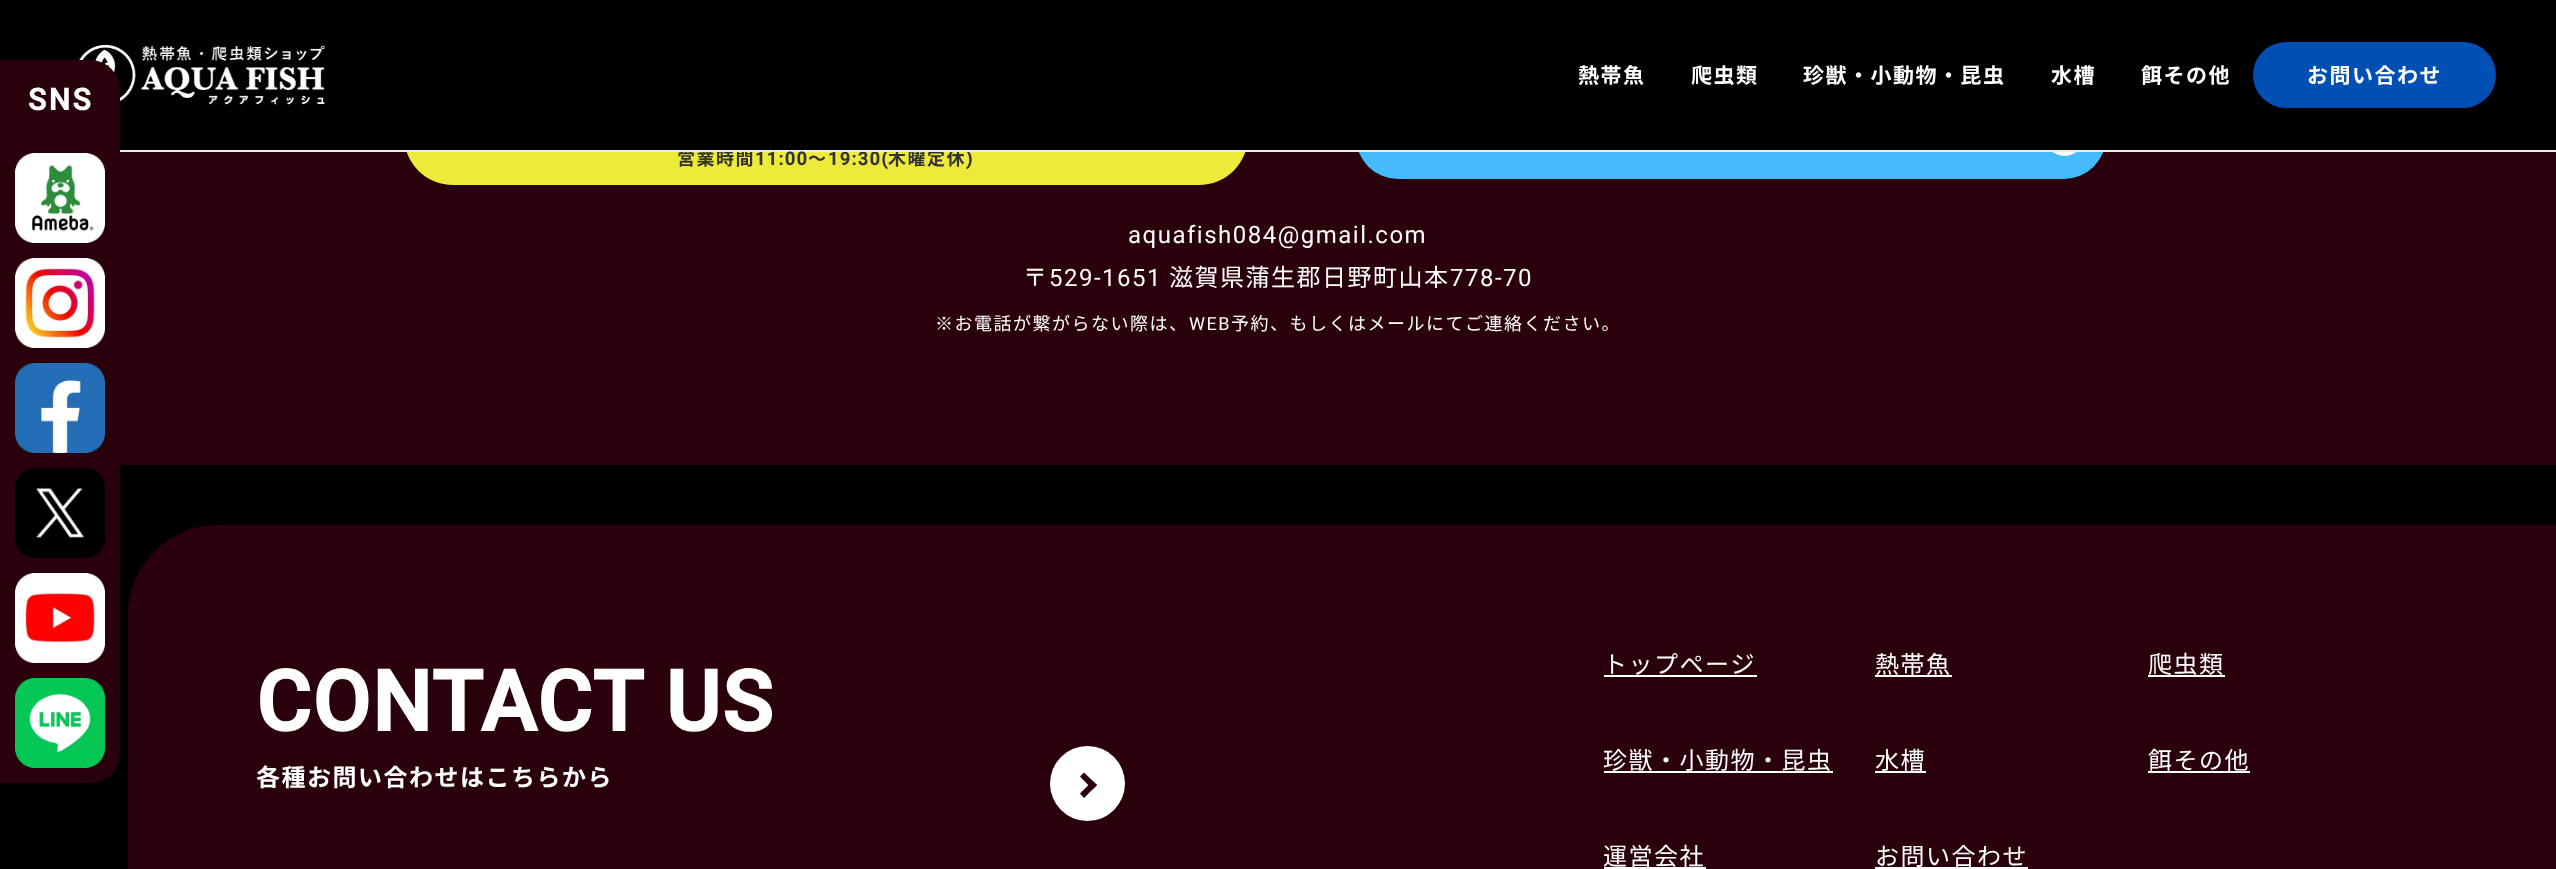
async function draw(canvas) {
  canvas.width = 2556
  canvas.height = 869
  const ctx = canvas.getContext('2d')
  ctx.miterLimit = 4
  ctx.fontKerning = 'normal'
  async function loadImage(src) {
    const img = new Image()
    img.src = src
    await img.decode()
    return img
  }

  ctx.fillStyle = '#000'
  ctx.fillRect(0, 0, 2556, 869)
  ctx.fillStyle = '#29000c'
  ctx.fillRect(120, 152, 2436, 313)
  ctx.fillStyle = '#eeea39'
  ctx.beginPath()
  ctx.roundRect(404, 87, 844, 98, 49)
  ctx.fill()
  ctx.letterSpacing = '1.5px'
  ctx.font = 'bold 18px Noto Sans JP'
  ctx.fillStyle = '#333'
  ctx.fillText('営業時間', 677, 165)
  ctx.fillText('木曜定休', 888, 165)
  ctx.fillStyle = '#45bafd'
  ctx.beginPath()
  ctx.roundRect(1356, 95, 750, 84, 42)
  ctx.fill()
  ctx.fillStyle = '#fff'
  ctx.beginPath()
  ctx.arc(2064.5, 136.5, 19.5, 0, 2 * Math.PI)
  ctx.fill()
  ctx.fillStyle = '#000'
  ctx.fillRect(404, 87, 1702, 63)
  ctx.font = 'bold 18px Roboto'
  ctx.fillStyle = '#333'
  ctx.fillText('19:30(', 828, 165)
  ctx.fillText(')', 966, 165)
  ctx.fillStyle = '#ededed'
  ctx.fillRect(120, 150, 2436, 2)
  ctx.drawImage(await loadImage('image0.png'), 79, 45, 246, 60)
  ctx.font = 'bold 21px Noto Sans JP'
  ctx.fillStyle = '#fff'
  ctx.fillText('熱帯魚', 1578, 83)
  ctx.fillText('爬虫類', 1691, 83)
  ctx.fillText('珍獣・小動物・昆虫', 1803, 83)
  ctx.fillText('水槽', 2051, 83)
  ctx.fillText('餌その他', 2141, 83)
  ctx.fillStyle = '#004fb5'
  ctx.beginPath()
  ctx.roundRect(2253, 42, 243, 66, 33)
  ctx.fill()
  ctx.fillStyle = '#fff'
  ctx.fillText('お問い合わせ', 2307, 83)
  ctx.fillStyle = '#29000c'
  ctx.beginPath()
  ctx.roundRect(0, 60, 120, 723, [0, 30, 30, 0])
  ctx.fill()
  ctx.letterSpacing = '2.5px'
  ctx.font = 'bold 30px Roboto'
  ctx.fillStyle = '#fff'
  ctx.fillText('SNS', 28, 110)
  ctx.drawImage(await loadImage('image1.png'), 15, 153, 90, 90)
  ctx.drawImage(await loadImage('image2.png'), 15, 258, 90, 90)
  ctx.drawImage(await loadImage('image3.png'), 15, 363, 90, 90)
  ctx.drawImage(await loadImage('image4.png'), 15, 468, 90, 90)
  ctx.drawImage(await loadImage('image5.png'), 15, 573, 90, 90)
  ctx.drawImage(await loadImage('image6.png'), 15, 678, 90, 90)
  ctx.letterSpacing = '1.5px'
  ctx.font = 'bold 18px Roboto'
  ctx.fillStyle = '#333'
  ctx.fillText('11:00', 755, 165)
  ctx.font = 'bold 18px Noto Sans JP'
  ctx.fillText('〜', 808, 165)
  ctx.font = '24px Roboto'
  ctx.fillStyle = '#fff'
  ctx.fillText('aquafish084@gmail.com', 1128, 243)
  ctx.font = '24px Noto Sans JP'
  ctx.fillText('〒', 1023, 286)
  ctx.font = '24px Roboto'
  ctx.fillText('529-1651', 1049, 286)
  ctx.font = '24px Noto Sans JP'
  ctx.fillText('滋賀県蒲生郡日野町山本', 1169, 286)
  ctx.font = '24px Roboto'
  ctx.fillText('778-70', 1450, 286)
  ctx.font = '18px Noto Sans JP'
  ctx.fillText('※お電話が繋がらない際は、', 935, 330)
  ctx.font = '18px Roboto'
  ctx.fillText('WEB', 1189, 330)
  ctx.font = '18px Noto Sans JP'
  ctx.fillText('予約、もしくはメールにてご連絡ください。', 1231, 330)
  ctx.fillStyle = '#29000c'
  ctx.beginPath()
  ctx.moveTo(218, 525)
  ctx.lineTo(2556, 525)
  ctx.lineTo(2556, 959)
  ctx.lineTo(128, 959)
  ctx.lineTo(128, 615)
  ctx.bezierCurveTo(128, 565.5, 168.5, 525, 218, 525)
  ctx.closePath()
  ctx.fill()
  ctx.font = 'bold 84px Roboto'
  ctx.fillStyle = '#fff'
  ctx.fillText('CONTACT US', 256, 731)
  ctx.font = 'bold 24px Noto Sans JP'
  ctx.fillText('各種お問い合わせはこちらから', 256, 786)
  ctx.beginPath()
  ctx.arc(1087.5, 783.5, 37.5, 0, 2 * Math.PI)
  ctx.fill()
  ctx.fillStyle = '#29000c'
  ctx.beginPath()
  ctx.moveTo(1084, 772.5)
  ctx.lineTo(1097, 785)
  ctx.lineTo(1092.5, 789.5)
  ctx.lineTo(1080, 776.5)
  ctx.closePath()
  ctx.fill()
  ctx.beginPath()
  ctx.moveTo(1092.5, 781)
  ctx.lineTo(1097, 785)
  ctx.lineTo(1084, 798)
  ctx.lineTo(1080, 793.5)
  ctx.closePath()
  ctx.fill()
  ctx.font = '24px Noto Sans JP'
  ctx.fillStyle = '#fff'
  ctx.fillText('トップページ', 1603, 673)
  ctx.fillRect(1604, 675, 153, 2)
  ctx.fillText('熱帯魚', 1875, 673)
  ctx.fillRect(1875, 675, 77, 2)
  ctx.fillRect(2148, 675, 77, 2)
  ctx.fillText('爬虫類', 2148, 673)
  ctx.fillRect(1604, 771, 229, 2)
  ctx.fillText('珍獣・小動物・昆虫', 1603, 769)
  ctx.fillText('水槽', 1875, 769)
  ctx.fillRect(1875, 771, 51, 2)
  ctx.fillText('餌その他', 2148, 769)
  ctx.fillRect(2148, 771, 102, 2)
  ctx.fillText('運営会社', 1603, 865)
  ctx.fillRect(1604, 867, 102, 2)
  ctx.fillText('お問い合わせ', 1875, 865)
  ctx.fillRect(1875, 867, 153, 2)
}

draw(document.querySelector('canvas'))
